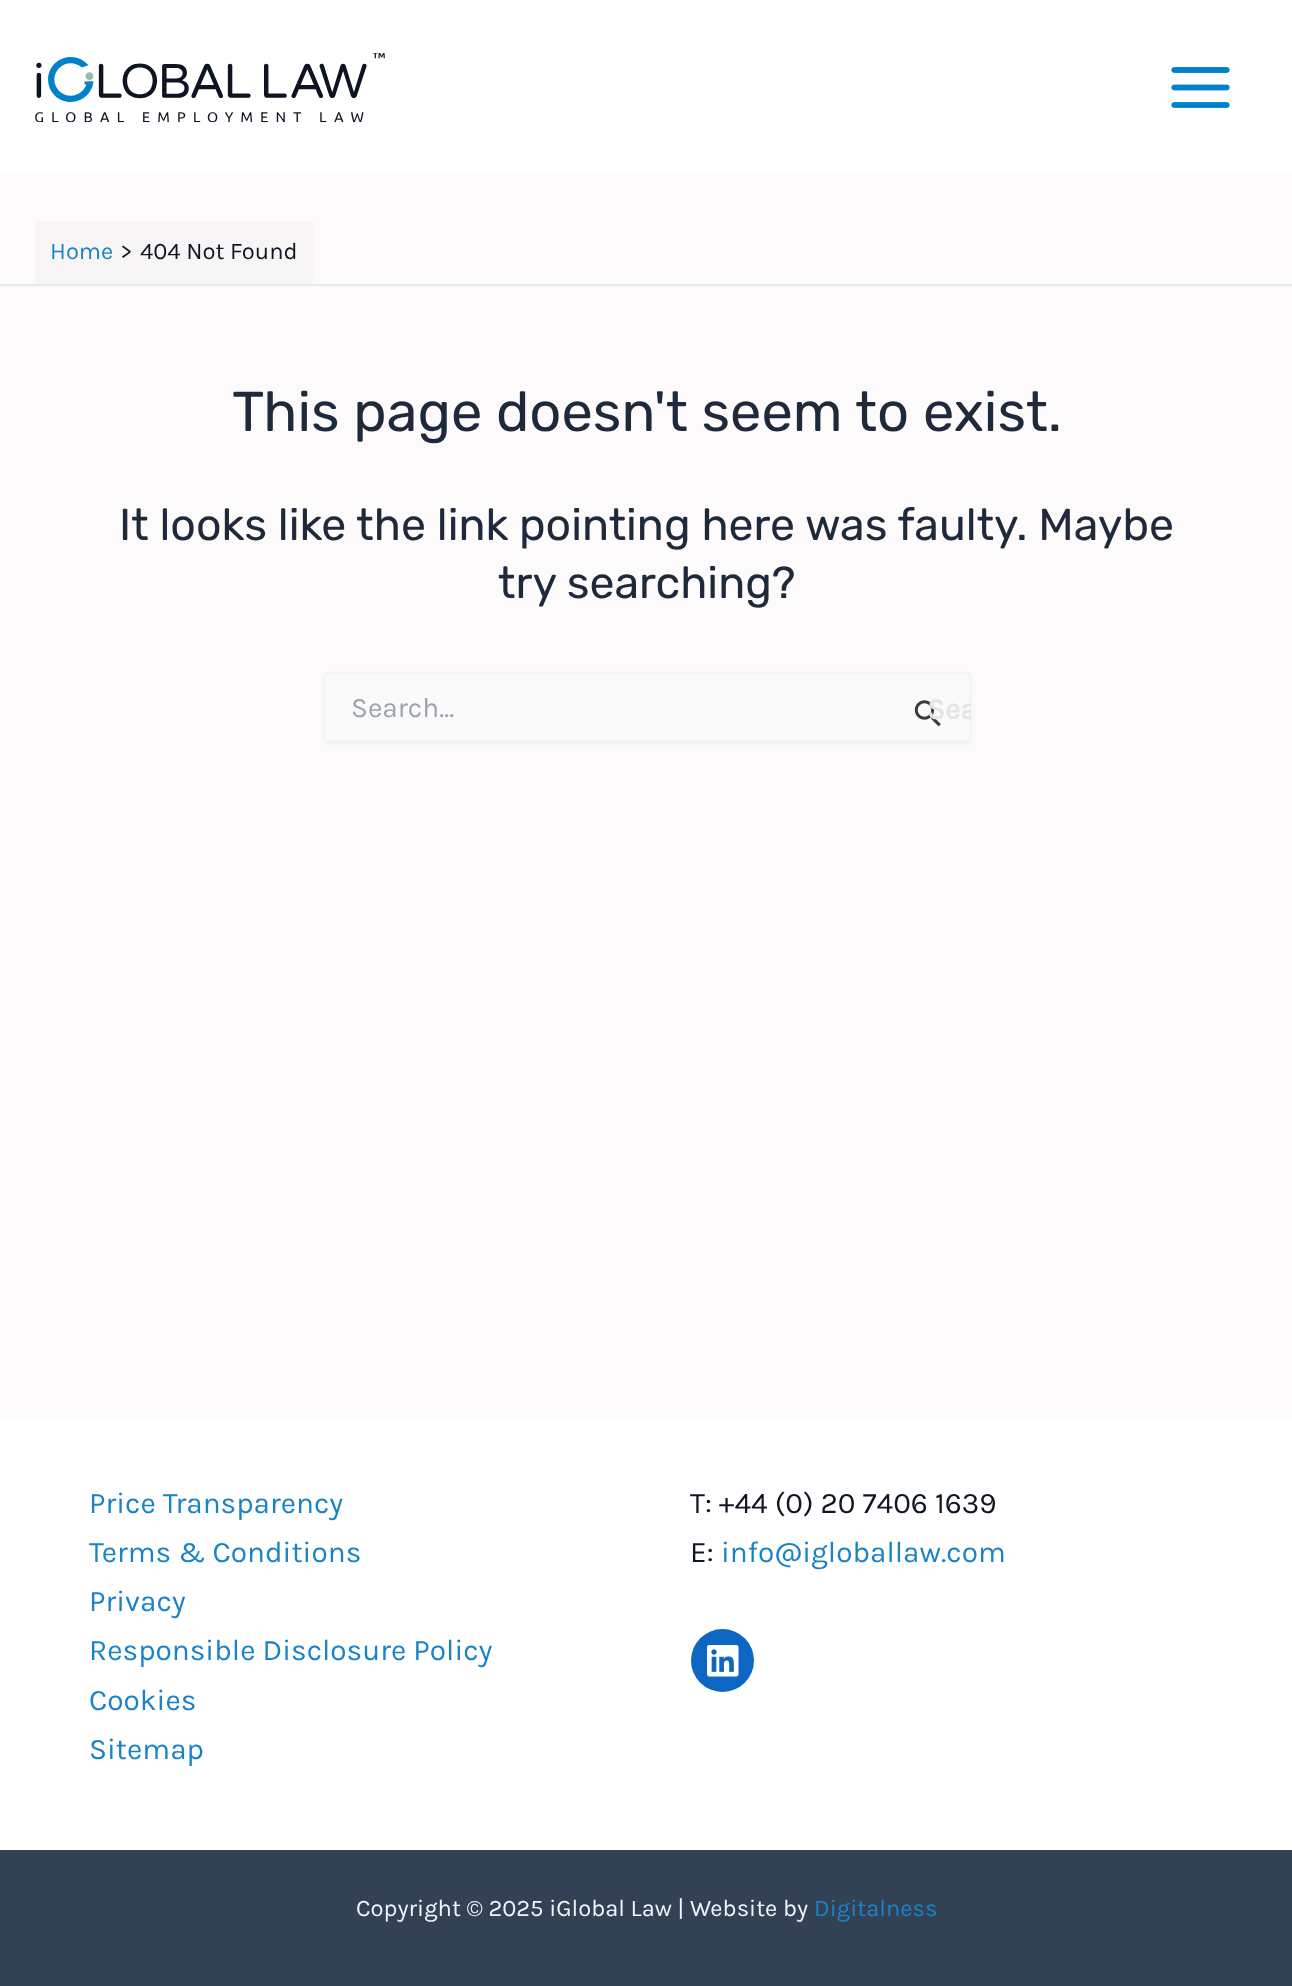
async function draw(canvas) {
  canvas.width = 1292
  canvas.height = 1986
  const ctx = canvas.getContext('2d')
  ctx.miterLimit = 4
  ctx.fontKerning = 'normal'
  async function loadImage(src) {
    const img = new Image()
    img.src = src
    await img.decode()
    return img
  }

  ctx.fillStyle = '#fcfafa'
  ctx.fillRect(0, 0, 1292, 1986)
  ctx.fillStyle = '#fff'
  ctx.fillRect(0, 0, 1292, 175)
  ctx.drawImage(await loadImage('image0.png'), 35, 53, 350, 70)
  ctx.drawImage(await loadImage('image1.png'), 1171, 67, 59, 41)
  ctx.fillStyle = '#eaeaea'
  ctx.fillRect(0, 284, 1292, 2)
  ctx.fillStyle = '#f7f5f5'
  ctx.fillRect(35, 221, 278, 63)
  ctx.font = '23.75px Karla'
  ctx.fillStyle = '#1a83c6'
  ctx.fillText('Home', 50, 259)
  ctx.fillStyle = '#0e1622'
  ctx.fillText('>', 120, 259)
  ctx.fillText('404 Not Found', 140, 259)
  ctx.font = '300 56px Rubik'
  ctx.fillStyle = '#1e293b'
  ctx.fillText('This page doesn\'t seem to exist.', 232, 431)
  ctx.font = '300 44.6px Rubik'
  ctx.fillText('It looks like the link pointing here was faulty. Maybe', 119, 540)
  ctx.fillText('try searching?', 498, 598)
  ctx.fillStyle = '#0000000d'
  ctx.filter = 'blur(2px)'
  ctx.beginPath()
  ctx.roundRect(324, 674, 647, 70, 4)
  ctx.fill()
  ctx.filter = 'none'
  ctx.fillStyle = '#fafafa'
  ctx.beginPath()
  ctx.roundRect(325, 673, 645, 68, 3)
  ctx.fill()
  ctx.strokeStyle = '#f0f5fa'
  ctx.lineWidth = 2
  ctx.stroke()
  ctx.font = '28px Karla'
  ctx.fillStyle = '#9ca3af'
  ctx.fillText('Search...', 351, 717)
  ctx.drawImage(await loadImage('image2.png'), 914, 700, 27, 27)
  ctx.save()
  ctx.beginPath()
  ctx.roundRect(893, 672, 78, 75, 4)
  ctx.clip()
  ctx.font = 'bold 29.75px Karla'
  ctx.fillStyle = '#e4e5e5'
  ctx.fillText('Sea', 927, 719)
  ctx.restore()
  ctx.fillStyle = '#fff'
  ctx.fillRect(0, 1419, 1292, 431)
  ctx.font = '29.75px Karla'
  ctx.fillStyle = '#1a83c6'
  ctx.fillText('Price Transparency', 89, 1513)
  ctx.fillText('Terms & Conditions', 89, 1562)
  ctx.fillText('Privacy', 89, 1611)
  ctx.fillText('Responsible Disclosure Policy', 89, 1660)
  ctx.fillText('Cookies', 89, 1710)
  ctx.fillText('Sitemap', 89, 1759)
  ctx.fillStyle = '#0e1622'
  ctx.fillText('T: +44 (0) 20 7406 1639', 690, 1513)
  ctx.fillText('E:', 690, 1562)
  ctx.fillStyle = '#1a83c6'
  ctx.fillText('info@igloballaw.com', 721, 1562)
  ctx.fillStyle = '#0d66c2'
  ctx.beginPath()
  ctx.arc(722.5, 1660.5, 31.5, 0, 2 * Math.PI)
  ctx.fill()
  ctx.drawImage(await loadImage('image3.png'), 707, 1645, 32, 32)
  ctx.fillStyle = '#334155'
  ctx.fillRect(0, 1850, 1292, 136)
  ctx.font = '23.75px Karla'
  ctx.fillStyle = '#f0f5fa'
  ctx.fillText('Copyright © 2025 iGlobal Law | Website by', 356, 1916)
  ctx.fillStyle = '#1a83c6'
  ctx.fillText('Digitalness', 814, 1916)
}

draw(document.querySelector('canvas'))
